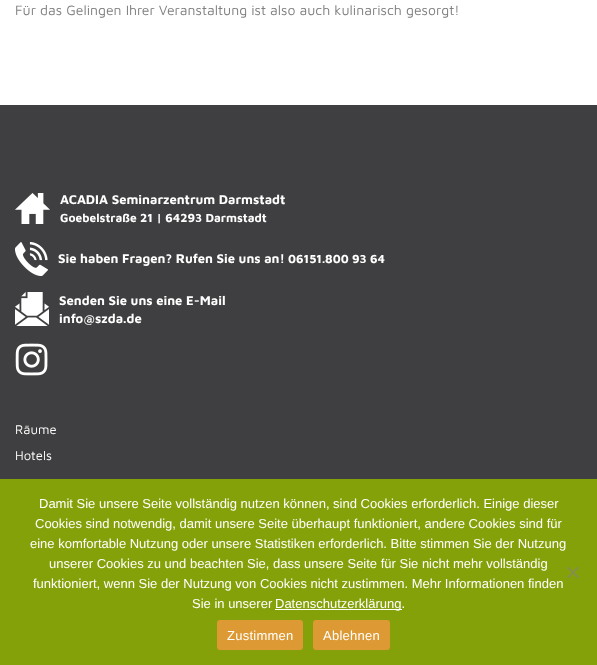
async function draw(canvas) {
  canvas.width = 597
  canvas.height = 665
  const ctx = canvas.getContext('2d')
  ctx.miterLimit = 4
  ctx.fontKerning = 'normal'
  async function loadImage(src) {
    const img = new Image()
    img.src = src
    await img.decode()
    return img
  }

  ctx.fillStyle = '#fff'
  ctx.fillRect(0, 0, 597, 665)
  ctx.font = '14px Maven Pro'
  ctx.fillStyle = '#807f7f'
  ctx.fillText('Für das Gelingen Ihrer Veranstaltung ist also auch kulinarisch gesorgt!', 15, 15)
  ctx.fillStyle = '#3f3f41'
  ctx.fillRect(0, 105, 597, 374)
  ctx.drawImage(await loadImage('image0.png'), 15, 193, 35, 31)
  ctx.font = 'bold 13px Maven Pro'
  ctx.fillStyle = '#fff'
  ctx.fillText('ACADIA Seminarzentrum Darmstadt', 60, 204)
  ctx.font = 'bold 12px Maven Pro'
  ctx.fillText('Goebelstraße 21 | 64293 Darmstadt', 60, 222)
  ctx.drawImage(await loadImage('image1.png'), 15, 242, 33, 34)
  ctx.font = 'bold 13px Maven Pro'
  ctx.fillText('Sie haben Fragen? Rufen Sie uns an!', 58, 263)
  ctx.font = 'bold 12px Maven Pro'
  ctx.fillText('06151.800 93 64', 288, 263)
  ctx.drawImage(await loadImage('image2.png'), 15, 292, 34, 34)
  ctx.font = 'bold 13px Maven Pro'
  ctx.fillText('Senden Sie uns eine E-Mail', 59, 305)
  ctx.fillText('info@szda.de', 59, 323)
  ctx.drawImage(await loadImage('image3.png'), 15, 343, 33, 33)
  ctx.font = '13px Maven Pro'
  ctx.fillText('Räume', 15, 434)
  ctx.fillText('Hotels', 15, 460)
  ctx.fillStyle = '#85a10a'
  ctx.fillRect(0, 479, 597, 186)
  ctx.font = '13px Liberation Sans'
  ctx.fillStyle = '#fff'
  ctx.fillText('Damit Sie unsere Seite vollständig nutzen können, sind Cookies erforderlich. Einige dieser', 39, 508)
  ctx.fillText('Cookies sind notwendig, damit unsere Seite überhaupt funktioniert, andere Cookies sind für', 35, 528)
  ctx.fillText('eine komfortable Nutzung oder unsere Statistiken erforderlich. Bitte stimmen Sie der Nutzung', 30, 548)
  ctx.fillText('unserer Cookies zu und beachten Sie, dass unsere Seite für Sie nicht mehr vollständig', 49, 568)
  ctx.fillText('funktioniert, wenn Sie der Nutzung von Cookies nicht zustimmen. Mehr Informationen finden', 33, 588)
  ctx.fillText('Sie in unserer', 192, 608)
  ctx.fillRect(275, 609, 127, 1)
  ctx.fillText('Datenschutzerklärung.', 275, 608)
  ctx.fillStyle = '#839145'
  ctx.beginPath()
  ctx.moveTo(577.5, 566.5)
  ctx.lineTo(579, 568)
  ctx.lineTo(568.5, 578.5)
  ctx.lineTo(567, 577)
  ctx.closePath()
  ctx.fill()
  ctx.beginPath()
  ctx.moveTo(567, 568)
  ctx.lineTo(568.5, 566.5)
  ctx.lineTo(579, 577)
  ctx.lineTo(577.5, 578.5)
  ctx.closePath()
  ctx.fill()
  ctx.fillStyle = '#d93'
  ctx.beginPath()
  ctx.roundRect(217, 620, 86, 30, 3)
  ctx.fill()
  ctx.letterSpacing = '0.25px'
  ctx.fillStyle = '#fff'
  ctx.fillText('Zustimmen', 227, 640)
  ctx.fillStyle = '#d93'
  ctx.beginPath()
  ctx.roundRect(313, 620, 77, 30, 3)
  ctx.fill()
  ctx.fillStyle = '#fff'
  ctx.fillText('Ablehnen', 323, 640)
}

draw(document.querySelector('canvas'))
